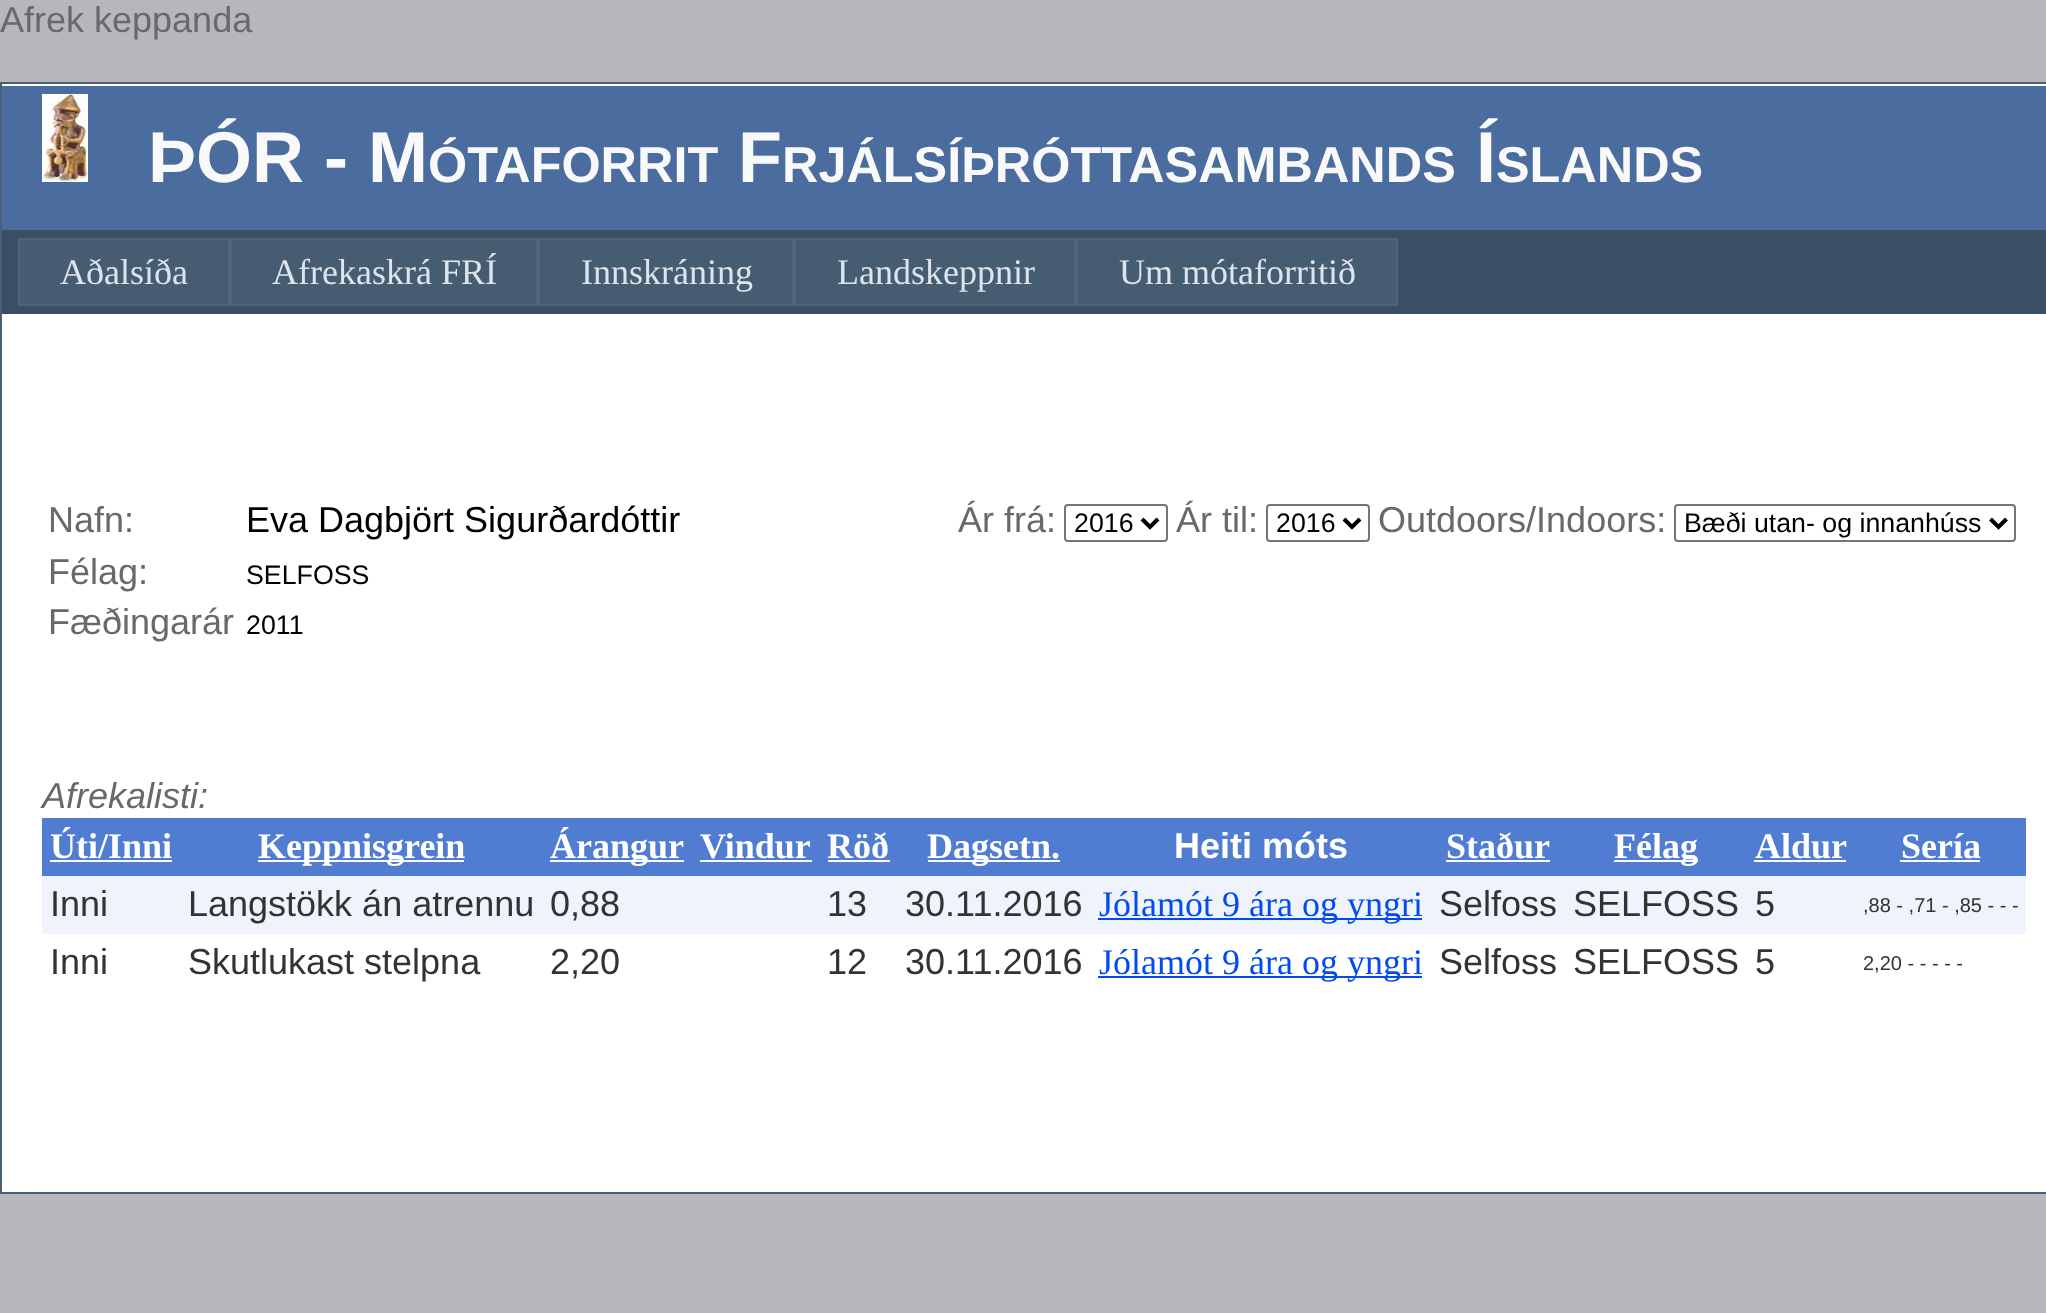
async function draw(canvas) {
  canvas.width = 2046
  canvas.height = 1313
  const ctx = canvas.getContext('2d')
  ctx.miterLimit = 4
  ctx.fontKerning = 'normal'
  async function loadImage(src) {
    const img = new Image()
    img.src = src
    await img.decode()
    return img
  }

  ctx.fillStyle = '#b6b7bc'
  ctx.fillRect(0, 0, 2046, 1313)
  ctx.font = '36px Liberation Sans'
  ctx.fillStyle = '#696969'
  ctx.fillText('Afrek keppanda', 0, 32)
  ctx.fillStyle = '#fff'
  ctx.beginPath()
  ctx.rect(1, 83, 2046, 1110)
  ctx.fill()
  ctx.strokeStyle = '#496077'
  ctx.lineWidth = 2
  ctx.stroke()
  ctx.fillStyle = '#4b6c9e'
  ctx.fillRect(2, 86, 2044, 144)
  ctx.drawImage(await loadImage('image0.png'), 42, 94, 46, 88)
  ctx.font = 'bold 72px Liberation Sans'
  ctx.fillStyle = '#f9f9f9'
  ctx.fillText('ÞÓR - M', 148, 182)
  ctx.font = 'bold 50.4px Liberation Sans'
  ctx.fillText('ÓTAFORRIT', 428, 182)
  ctx.font = 'bold 72px Liberation Sans'
  ctx.fillText('F', 738, 182)
  ctx.font = 'bold 50.4px Liberation Sans'
  ctx.fillText('RJÁLSÍÞRÓTTASAMBANDS', 782, 182)
  ctx.font = 'bold 72px Liberation Sans'
  ctx.fillText('Í', 1476, 182)
  ctx.font = 'bold 50.4px Liberation Sans'
  ctx.fillText('SLANDS', 1496, 182)
  ctx.fillStyle = '#3a4f63'
  ctx.fillRect(2, 230, 2044, 84)
  ctx.fillStyle = '#465c71'
  ctx.beginPath()
  ctx.rect(19, 239, 210, 66)
  ctx.fill()
  ctx.strokeStyle = '#4e667d'
  ctx.stroke()
  ctx.font = '36px Liberation Serif'
  ctx.fillStyle = '#dde4ec'
  ctx.fillText('Aðalsíða', 60, 284)
  ctx.fillStyle = '#465c71'
  ctx.beginPath()
  ctx.rect(231, 239, 306, 66)
  ctx.fill()
  ctx.stroke()
  ctx.fillStyle = '#dde4ec'
  ctx.fillText('Afrekaskrá FRÍ', 272, 284)
  ctx.fillStyle = '#465c71'
  ctx.beginPath()
  ctx.rect(539, 239, 254, 66)
  ctx.fill()
  ctx.stroke()
  ctx.fillStyle = '#dde4ec'
  ctx.fillText('Innskráning', 581, 284)
  ctx.fillStyle = '#465c71'
  ctx.beginPath()
  ctx.rect(795, 239, 280, 66)
  ctx.fill()
  ctx.stroke()
  ctx.fillStyle = '#dde4ec'
  ctx.fillText('Landskeppnir', 837, 284)
  ctx.fillStyle = '#465c71'
  ctx.beginPath()
  ctx.rect(1077, 239, 320, 66)
  ctx.fill()
  ctx.stroke()
  ctx.fillStyle = '#dde4ec'
  ctx.fillText('Um mótaforritið', 1119, 284)
  ctx.font = '36px Liberation Sans'
  ctx.fillStyle = '#696969'
  ctx.fillText('Nafn:', 48, 532)
  ctx.fillStyle = '#000'
  ctx.fillText('Eva Dagbjört Sigurðardóttir', 246, 532)
  ctx.fillStyle = '#696969'
  ctx.fillText('Ár frá:', 958, 532)
  ctx.beginPath()
  ctx.roundRect(1065, 505, 102, 36, 3)
  ctx.strokeStyle = '#767676'
  ctx.stroke()
  ctx.beginPath()
  ctx.moveTo(1142, 519)
  ctx.lineTo(1150, 527)
  ctx.lineTo(1158, 519)
  ctx.strokeStyle = '#000'
  ctx.lineWidth = 4
  ctx.stroke()
  ctx.font = '26.75px Liberation Sans'
  ctx.fillStyle = '#000'
  ctx.fillText('2016', 1074, 532)
  ctx.font = '36px Liberation Sans'
  ctx.fillStyle = '#696969'
  ctx.fillText('Ár til:', 1176, 532)
  ctx.beginPath()
  ctx.roundRect(1267, 505, 102, 36, 3)
  ctx.strokeStyle = '#767676'
  ctx.lineWidth = 2
  ctx.stroke()
  ctx.beginPath()
  ctx.moveTo(1344, 519)
  ctx.lineTo(1352, 527)
  ctx.lineTo(1360, 519)
  ctx.strokeStyle = '#000'
  ctx.lineWidth = 4
  ctx.stroke()
  ctx.font = '26.75px Liberation Sans'
  ctx.fillStyle = '#000'
  ctx.fillText('2016', 1276, 532)
  ctx.font = '36px Liberation Sans'
  ctx.fillStyle = '#696969'
  ctx.fillText('Outdoors/Indoors:', 1378, 532)
  ctx.beginPath()
  ctx.roundRect(1675, 505, 340, 36, 3)
  ctx.strokeStyle = '#767676'
  ctx.lineWidth = 2
  ctx.stroke()
  ctx.beginPath()
  ctx.moveTo(1990.5, 519)
  ctx.lineTo(1998.5, 527)
  ctx.lineTo(2006.5, 519)
  ctx.strokeStyle = '#000'
  ctx.lineWidth = 4
  ctx.stroke()
  ctx.font = '26.75px Liberation Sans'
  ctx.fillStyle = '#000'
  ctx.fillText('Bæði utan- og innanhúss', 1684, 532)
  ctx.font = '36px Liberation Sans'
  ctx.fillStyle = '#696969'
  ctx.fillText('Félag:', 48, 584)
  ctx.font = '26.75px Liberation Sans'
  ctx.fillStyle = '#000'
  ctx.fillText('SELFOSS', 246, 584)
  ctx.font = '36px Liberation Sans'
  ctx.fillStyle = '#696969'
  ctx.fillText('Fæðingarár', 48, 634)
  ctx.font = '26.75px Liberation Sans'
  ctx.fillStyle = '#000'
  ctx.fillText('2011', 246, 634)
  ctx.font = 'italic 36px Liberation Sans'
  ctx.fillStyle = '#696969'
  ctx.fillText('Afrekalisti:', 42, 808)
  ctx.fillStyle = '#507cd1'
  ctx.fillRect(42, 818, 1984, 58)
  ctx.font = 'bold 36px Liberation Serif'
  ctx.fillStyle = '#fff'
  ctx.fillText('Úti/Inni', 50, 858)
  ctx.fillRect(50, 860, 122, 2)
  ctx.fillRect(258, 860, 206, 2)
  ctx.fillText('Keppnisgrein', 258, 858)
  ctx.fillRect(550, 860, 134, 2)
  ctx.fillText('Árangur', 550, 858)
  ctx.fillText('Vindur', 700, 858)
  ctx.fillRect(700, 860, 112, 2)
  ctx.fillText('Röð', 827, 858)
  ctx.fillRect(828, 860, 62, 2)
  ctx.fillRect(928, 860, 132, 2)
  ctx.fillText('Dagsetn.', 927, 858)
  ctx.font = 'bold 36px Liberation Sans'
  ctx.fillText('Heiti móts', 1174, 858)
  ctx.font = 'bold 36px Liberation Serif'
  ctx.fillText('Staður', 1446, 858)
  ctx.fillRect(1446, 860, 104, 2)
  ctx.fillRect(1614, 860, 84, 2)
  ctx.fillText('Félag', 1614, 858)
  ctx.fillText('Aldur', 1755, 858)
  ctx.fillRect(1754, 860, 92, 2)
  ctx.fillText('Sería', 1901, 858)
  ctx.fillRect(1900, 860, 80, 2)
  ctx.fillStyle = '#eff3fb'
  ctx.fillRect(42, 876, 1984, 58)
  ctx.font = '36px Liberation Sans'
  ctx.fillStyle = '#333'
  ctx.fillText('Inni', 50, 916)
  ctx.fillText('Langstökk án atrennu', 188, 916)
  ctx.fillText('0,88', 550, 916)
  ctx.fillText('13', 827, 916)
  ctx.fillText('30.11.2016', 905, 916)
  ctx.fillStyle = '#034af3'
  ctx.fillRect(1098, 918, 324, 2)
  ctx.font = '36px Liberation Serif'
  ctx.fillText('Jólamót 9 ára og yngri', 1099, 916)
  ctx.font = '36px Liberation Sans'
  ctx.fillStyle = '#333'
  ctx.fillText('Selfoss', 1439, 916)
  ctx.fillText('SELFOSS', 1573, 916)
  ctx.fillText('5', 1755, 916)
  ctx.font = '20px Liberation Sans'
  ctx.fillText(',88 - ,71 - ,85 - - -', 1863, 912)
  ctx.font = '36px Liberation Sans'
  ctx.fillText('Inni', 50, 974)
  ctx.fillText('Skutlukast stelpna', 188, 974)
  ctx.fillText('2,20', 550, 974)
  ctx.fillText('12', 827, 974)
  ctx.fillText('30.11.2016', 905, 974)
  ctx.fillStyle = '#034af3'
  ctx.fillRect(1098, 976, 324, 2)
  ctx.font = '36px Liberation Serif'
  ctx.fillText('Jólamót 9 ára og yngri', 1099, 974)
  ctx.font = '36px Liberation Sans'
  ctx.fillStyle = '#333'
  ctx.fillText('Selfoss', 1439, 974)
  ctx.fillText('SELFOSS', 1573, 974)
  ctx.fillText('5', 1755, 974)
  ctx.font = '20px Liberation Sans'
  ctx.fillText('2,20 - - - - -', 1863, 970)
}

draw(document.querySelector('canvas'))
